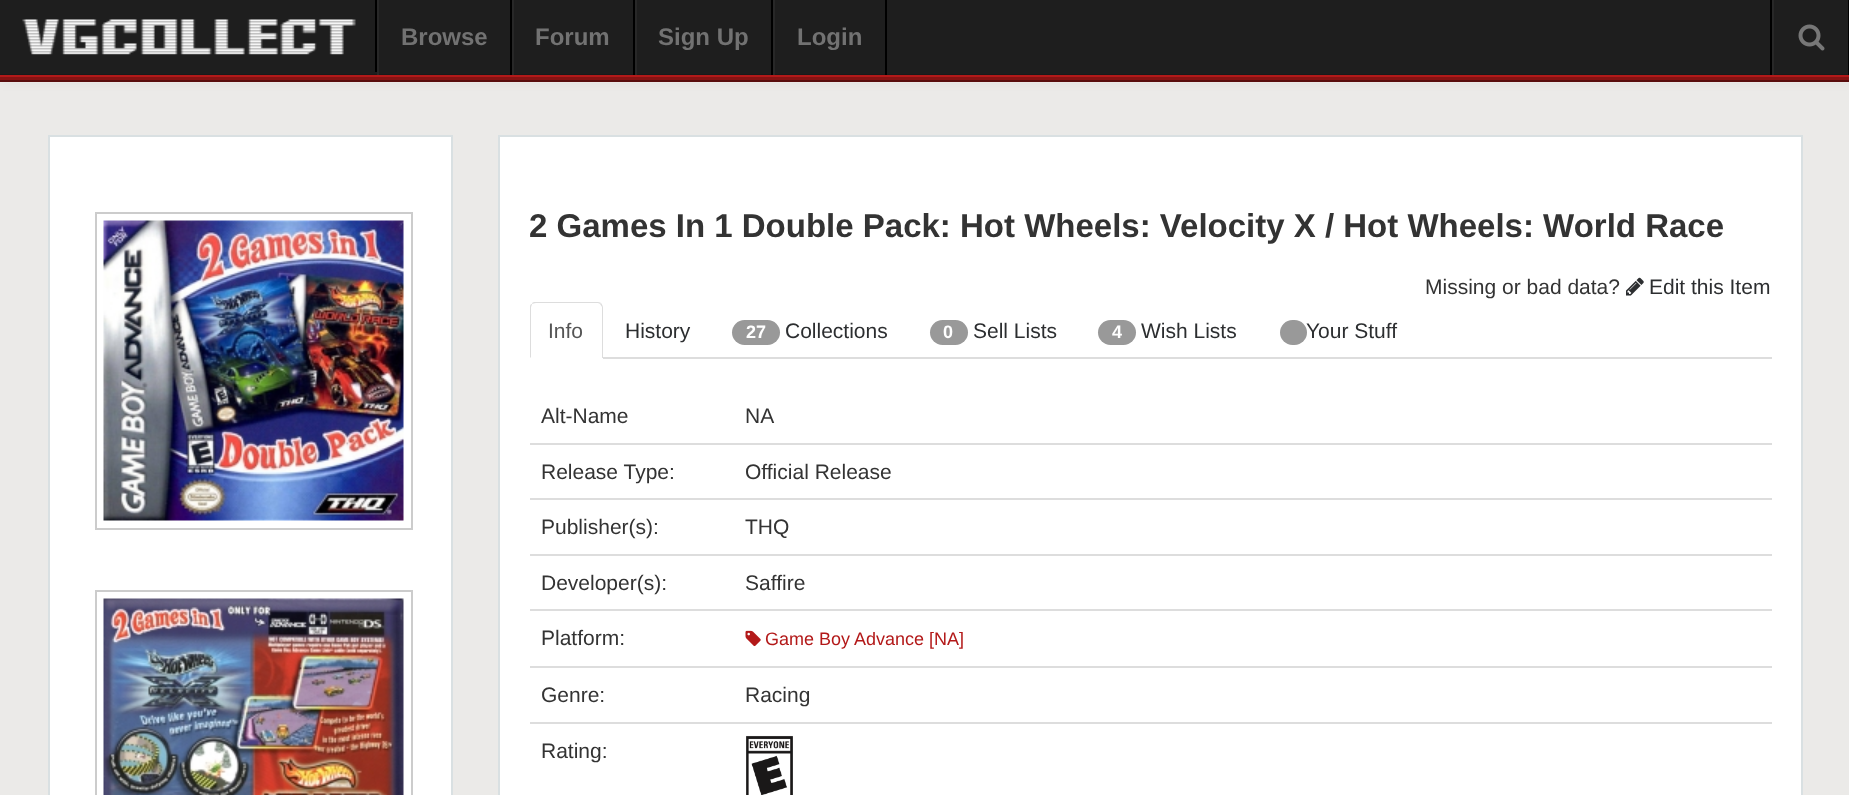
async function draw(canvas) {
  canvas.width = 1849
  canvas.height = 795
  const ctx = canvas.getContext('2d')
  ctx.miterLimit = 4
  ctx.fontKerning = 'normal'
  async function loadImage(src) {
    const img = new Image()
    img.src = src
    await img.decode()
    return img
  }

  ctx.fillStyle = '#ebeae8'
  ctx.fillRect(0, 0, 1849, 795)
  ctx.fillStyle = '#0000001a'
  ctx.filter = 'blur(7.5px)'
  ctx.beginPath()
  ctx.rect(0, 2, 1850, 75)
  ctx.fill()
  ctx.filter = 'none'
  ctx.fillStyle = '#1e1e1e'
  ctx.fillRect(0, 0, 1848, 75)
  ctx.fillStyle = '#0000001a'
  ctx.fillRect(0, 74, 1849, 1)
  ctx.fillStyle = '#000'
  ctx.fillRect(375, 0, 2, 72)
  ctx.drawImage(await loadImage('image0.png'), 22, 19, 334, 36)
  ctx.fillRect(510, 0, 2, 75)
  ctx.fillStyle = '#282828'
  ctx.fillRect(377, 0, 2, 75)
  ctx.font = 'bold 24px Liberation Sans'
  ctx.fillStyle = '#727272'
  ctx.fillText('Browse', 401, 45)
  ctx.fillStyle = '#000'
  ctx.fillRect(633, 0, 2, 75)
  ctx.fillStyle = '#282828'
  ctx.fillRect(512, 0, 2, 75)
  ctx.fillStyle = '#727272'
  ctx.fillText('Forum', 535, 45)
  ctx.fillStyle = '#000'
  ctx.fillRect(771, 0, 2, 75)
  ctx.fillStyle = '#282828'
  ctx.fillRect(635, 0, 2, 75)
  ctx.fillStyle = '#727272'
  ctx.fillText('Sign Up', 658, 45)
  ctx.fillStyle = '#000'
  ctx.fillRect(885, 0, 2, 75)
  ctx.fillStyle = '#282828'
  ctx.fillRect(773, 0, 2, 75)
  ctx.fillStyle = '#727272'
  ctx.fillText('Login', 797, 45)
  ctx.fillStyle = '#000'
  ctx.fillRect(1770, 0, 2, 75)
  ctx.fillRect(1848, 0, 1, 75)
  ctx.fillStyle = '#282828'
  ctx.fillRect(1772, 0, 2, 75)
  ctx.drawImage(await loadImage('image1.png'), 1798, 24, 27, 27)
  ctx.fillStyle = '#ffffff26'
  ctx.beginPath()
  ctx.moveTo(0, 81)
  ctx.lineTo(0, 83)
  ctx.lineTo(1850, 83)
  ctx.lineTo(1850, 77)
  ctx.lineTo(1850, 81)
  ctx.closePath()
  ctx.fill()
  ctx.fillStyle = '#861313'
  ctx.fillRect(0, 77, 1849, 3)
  ctx.fillStyle = '#b31919'
  ctx.fillRect(0, 75, 1849, 2)
  ctx.fillStyle = '#590d0d'
  ctx.fillRect(0, 80, 1849, 2)
  ctx.fillStyle = '#fff'
  ctx.beginPath()
  ctx.rect(49, 136, 403, 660)
  ctx.fill()
  ctx.strokeStyle = '#d9e0e2'
  ctx.lineWidth = 2
  ctx.stroke()
  ctx.strokeStyle = '#ccc'
  ctx.strokeRect(96, 213, 316, 316)
  ctx.drawImage(await loadImage('image2.png'), 103, 220, 301, 301)
  ctx.strokeRect(96, 591, 316, 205)
  ctx.drawImage(await loadImage('image3.png'), 103, 598, 301, 197)
  ctx.beginPath()
  ctx.rect(499, 136, 1303, 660)
  ctx.fill()
  ctx.strokeStyle = '#d9e0e2'
  ctx.stroke()
  ctx.font = 'bold 33px Liberation Sans'
  ctx.fillStyle = '#333'
  ctx.fillText('2 Games In 1 Double Pack: Hot Wheels: Velocity X / Hot Wheels: World Race', 529, 237)
  ctx.font = '21px Liberation Sans'
  ctx.fillText('Missing or bad data?', 1425, 294)
  ctx.drawImage(await loadImage('image4.png'), 1626, 277, 18, 19)
  ctx.fillStyle = '#2c2e30'
  ctx.fillText('Edit this Item', 1649, 294)
  ctx.fillStyle = '#ddd'
  ctx.fillRect(603, 357, 1169, 2)
  ctx.beginPath()
  ctx.moveTo(536, 302)
  ctx.bezierCurveTo(534, 302, 532, 302, 532, 304)
  ctx.bezierCurveTo(533, 304, 534, 303, 536, 303)
  ctx.lineTo(597, 303)
  ctx.bezierCurveTo(598, 303, 599, 303, 600, 304)
  ctx.lineTo(601, 303)
  ctx.bezierCurveTo(600, 302, 598, 302, 597, 302)
  ctx.closePath()
  ctx.fill()
  ctx.beginPath()
  ctx.moveTo(601, 303)
  ctx.bezierCurveTo(602, 304, 603, 306, 603, 308)
  ctx.lineTo(603, 358)
  ctx.lineTo(602, 358)
  ctx.lineTo(602, 357)
  ctx.lineTo(602, 307)
  ctx.lineTo(600, 304)
  ctx.closePath()
  ctx.fill()
  ctx.beginPath()
  ctx.moveTo(532, 304)
  ctx.bezierCurveTo(530, 304, 530, 306, 530, 308)
  ctx.lineTo(530, 358)
  ctx.lineTo(531, 357)
  ctx.lineTo(531, 308)
  ctx.bezierCurveTo(531, 306, 532, 305, 532, 304)
  ctx.closePath()
  ctx.fill()
  ctx.fillStyle = '#555'
  ctx.fillText('Info', 548, 338)
  ctx.fillStyle = '#2c2e30'
  ctx.fillText('History', 625, 338)
  ctx.fillStyle = '#999'
  ctx.beginPath()
  ctx.roundRect(732, 320, 48, 25, 12.5)
  ctx.fill()
  ctx.font = 'bold 18px Liberation Sans'
  ctx.fillStyle = '#fff'
  ctx.fillText('27', 746, 338)
  ctx.font = '21px Liberation Sans'
  ctx.fillStyle = '#2c2e30'
  ctx.fillText('Collections', 785, 338)
  ctx.fillStyle = '#999'
  ctx.beginPath()
  ctx.roundRect(930, 320, 38, 25, 12.5)
  ctx.fill()
  ctx.font = 'bold 18px Liberation Sans'
  ctx.fillStyle = '#fff'
  ctx.fillText('0', 943, 338)
  ctx.font = '21px Liberation Sans'
  ctx.fillStyle = '#2c2e30'
  ctx.fillText('Sell Lists', 973, 338)
  ctx.fillStyle = '#999'
  ctx.beginPath()
  ctx.roundRect(1098, 320, 38, 25, 12.5)
  ctx.fill()
  ctx.font = 'bold 18px Liberation Sans'
  ctx.fillStyle = '#fff'
  ctx.fillText('4', 1112, 338)
  ctx.font = '21px Liberation Sans'
  ctx.fillStyle = '#2c2e30'
  ctx.fillText('Wish Lists', 1141, 338)
  ctx.fillStyle = '#999'
  ctx.beginPath()
  ctx.roundRect(1280, 320, 27, 25, 12.5)
  ctx.fill()
  ctx.fillStyle = '#2c2e30'
  ctx.fillText('Your Stuff', 1306, 338)
  ctx.fillStyle = '#333'
  ctx.fillText('Alt-Name', 541, 423)
  ctx.fillText('NA', 745, 423)
  ctx.fillText('Release Type:', 541, 479)
  ctx.fillStyle = '#ddd'
  ctx.fillRect(530, 443, 1242, 2)
  ctx.fillStyle = '#333'
  ctx.fillText('Official Release', 745, 479)
  ctx.fillText('Publisher(s):', 541, 534)
  ctx.fillStyle = '#ddd'
  ctx.fillRect(530, 498, 1242, 2)
  ctx.fillStyle = '#333'
  ctx.fillText('THQ', 745, 534)
  ctx.fillText('Developer(s):', 541, 590)
  ctx.fillStyle = '#ddd'
  ctx.fillRect(530, 554, 1242, 2)
  ctx.fillStyle = '#333'
  ctx.fillText('Saffire', 745, 590)
  ctx.fillText('Platform:', 541, 645)
  ctx.fillStyle = '#ddd'
  ctx.fillRect(530, 609, 1242, 2)
  ctx.drawImage(await loadImage('image5.png'), 745, 630, 16, 17)
  ctx.font = '18px Liberation Sans'
  ctx.fillStyle = '#b31919'
  ctx.fillText('Game Boy Advance [NA]', 765, 645)
  ctx.font = '21px Liberation Sans'
  ctx.fillStyle = '#333'
  ctx.fillText('Genre:', 541, 702)
  ctx.fillStyle = '#ddd'
  ctx.fillRect(530, 666, 1242, 2)
  ctx.fillStyle = '#333'
  ctx.fillText('Racing', 745, 702)
  ctx.fillStyle = '#ddd'
  ctx.fillRect(530, 722, 1242, 2)
  ctx.drawImage(await loadImage('image6.png'), 746, 735, 47, 60)
  ctx.fillStyle = '#333'
  ctx.fillText('Rating:', 541, 758)
}

draw(document.querySelector('canvas'))
